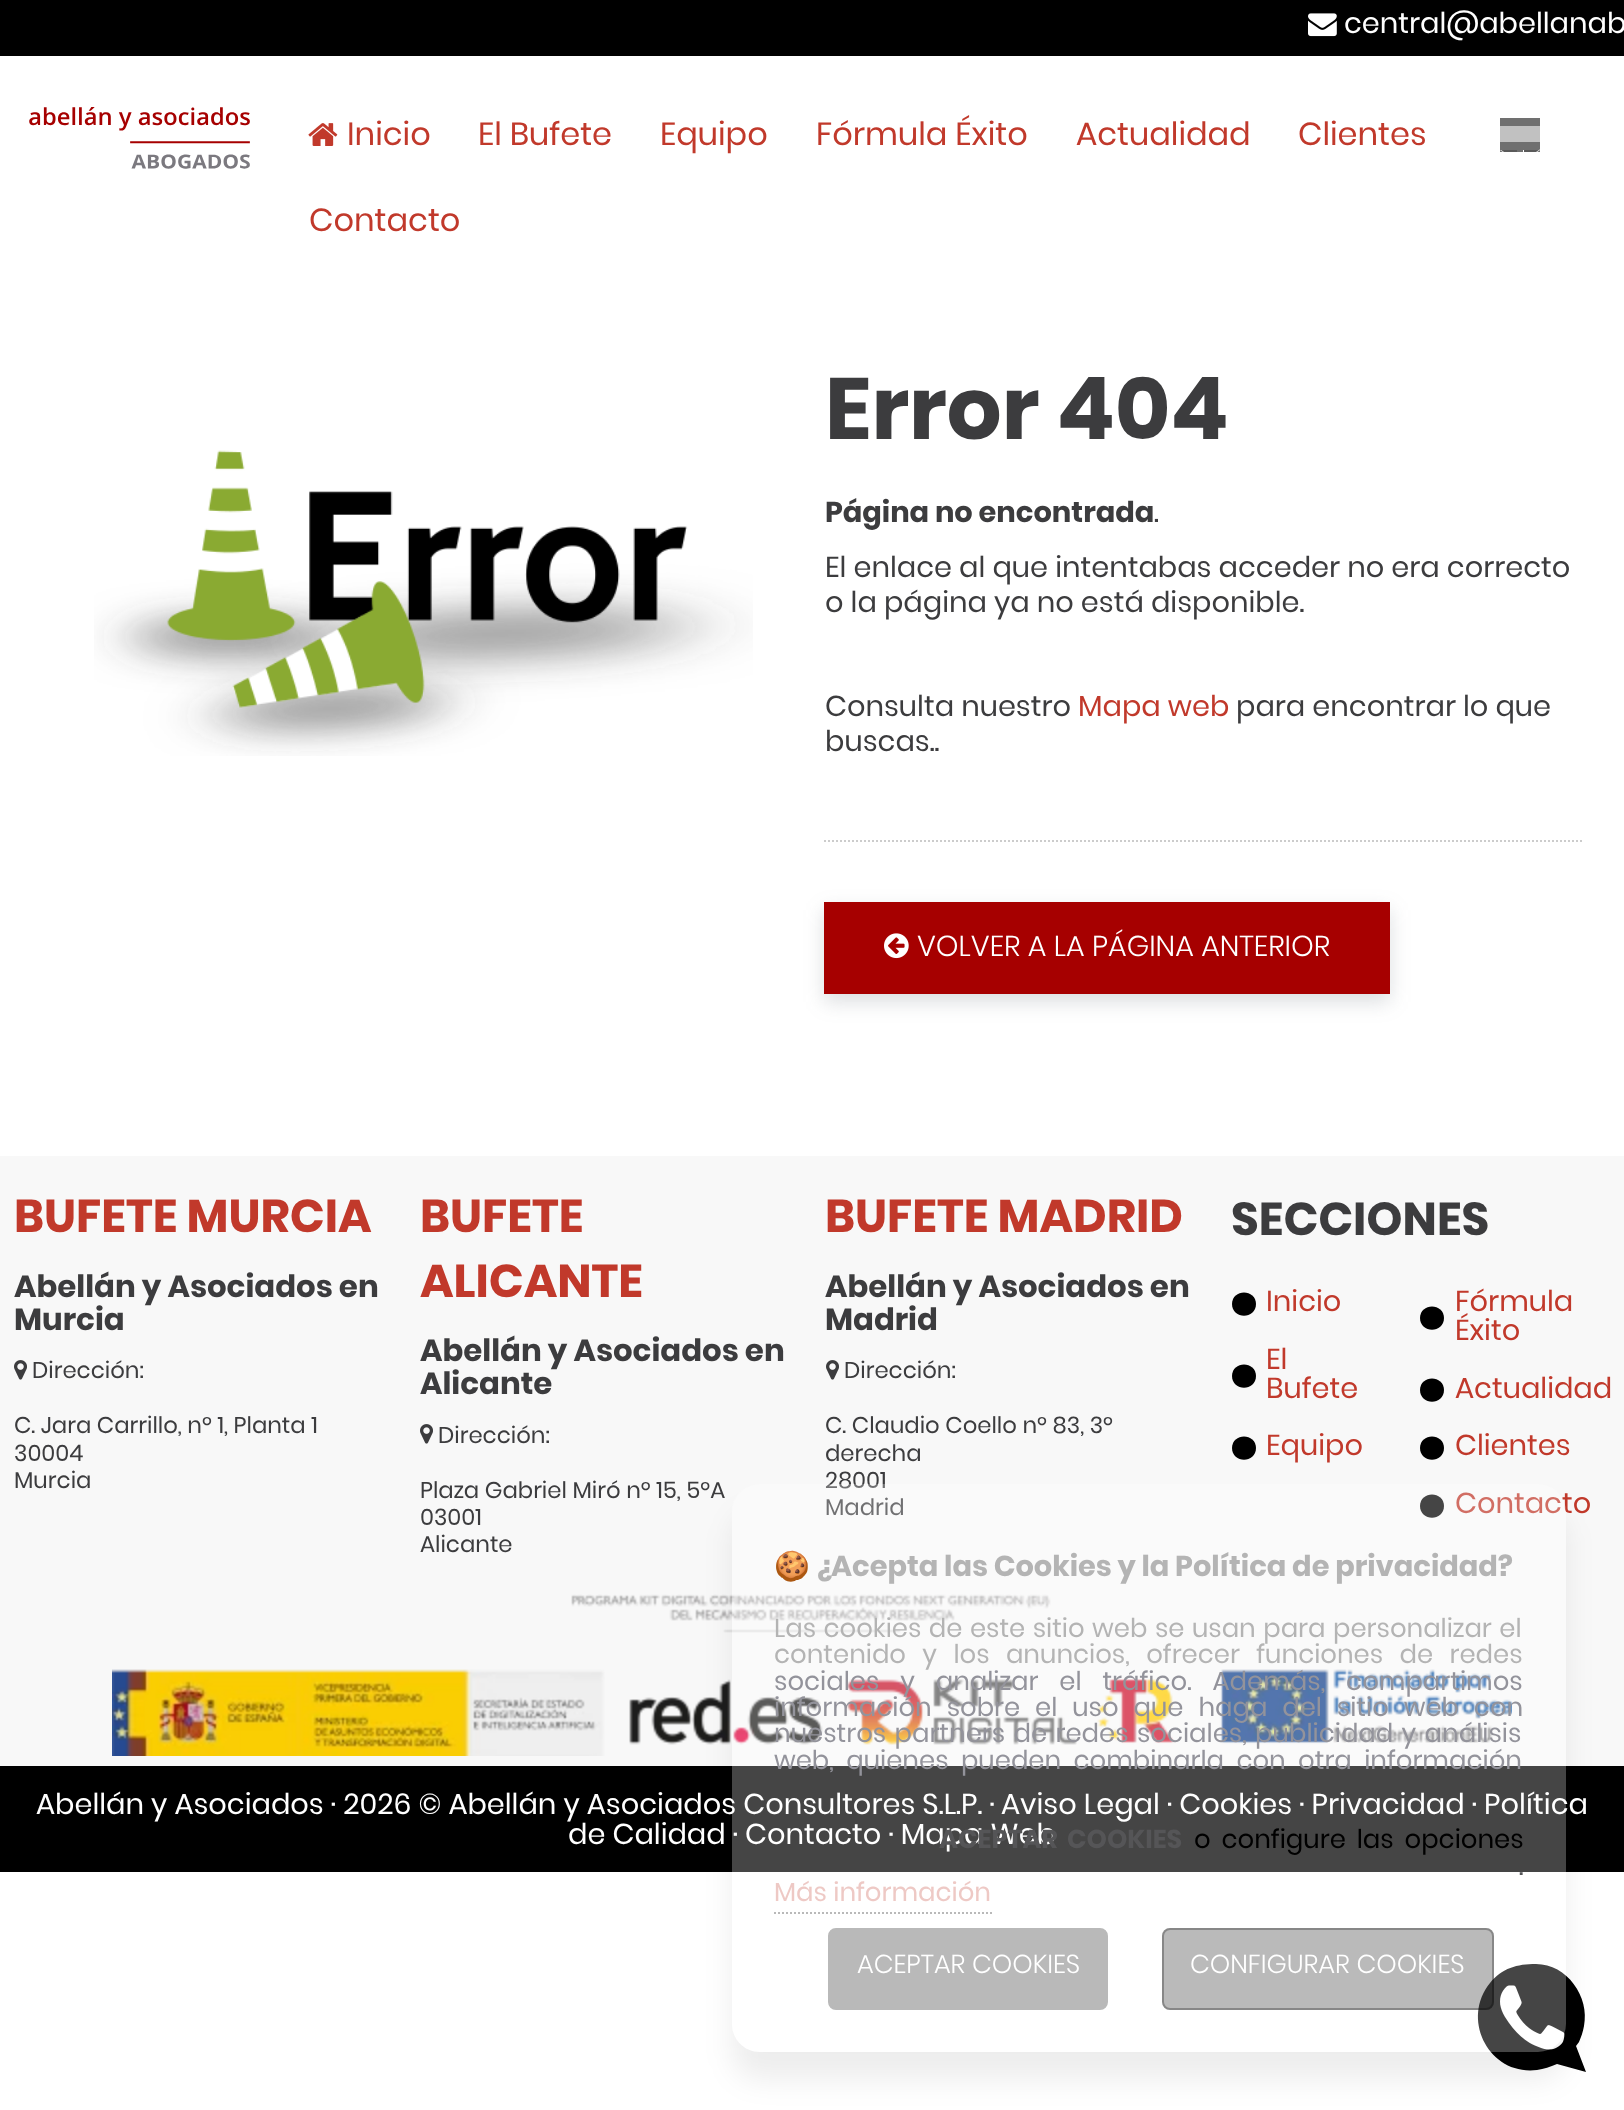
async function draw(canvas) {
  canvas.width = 1624
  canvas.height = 2110
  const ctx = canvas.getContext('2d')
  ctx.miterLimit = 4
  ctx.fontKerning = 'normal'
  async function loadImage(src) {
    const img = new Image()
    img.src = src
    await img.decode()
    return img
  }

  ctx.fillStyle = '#fff'
  ctx.fillRect(0, 0, 1624, 2110)
  ctx.fillStyle = '#000'
  ctx.fillRect(0, 0, 1624, 56)
  ctx.drawImage(await loadImage('image0.png'), 1308, 13, 29, 24)
  ctx.font = '28.8px Poppins'
  ctx.fillStyle = '#fff'
  ctx.fillText('central@abellanab', 1344, 33)
  ctx.drawImage(await loadImage('image1.png'), 29, 107, 221, 62)
  ctx.drawImage(await loadImage('image2.png'), 308, 123, 30, 23)
  ctx.font = '32px Poppins'
  ctx.fillStyle = '#c1392b'
  ctx.fillText('Inicio', 347, 145)
  ctx.fillText('El Bufete', 478, 145)
  ctx.fillText('Equipo', 660, 145)
  ctx.fillText('Fórmula Éxito', 816, 145)
  ctx.fillText('Actualidad', 1076, 145)
  ctx.fillText('Clientes', 1298, 145)
  ctx.fillText('Contacto', 309, 231)
  ctx.drawImage(await loadImage('image3.png'), 1500, 118, 40, 34)
  ctx.drawImage(await loadImage('image4.png'), 94, 450, 659, 306)
  ctx.font = 'bold 86.5px Poppins'
  ctx.fillStyle = '#3c3c3e'
  ctx.fillText('Error 404', 825, 439)
  ctx.font = 'bold 28.8px Poppins'
  ctx.fillText('Página no encontrada', 825, 522)
  ctx.font = '28.8px Poppins'
  ctx.fillText('.', 1154, 522)
  ctx.fillText('El enlace al que intentabas acceder no era correcto', 825, 577)
  ctx.fillText('o la página ya no está disponible.', 825, 612)
  ctx.fillText('Consulta nuestro', 825, 716)
  ctx.fillStyle = '#c1392b'
  ctx.fillText('Mapa web', 1078, 716)
  ctx.fillStyle = '#3c3c3e'
  ctx.fillText('para encontrar lo que', 1236, 716)
  ctx.fillText('buscas..', 825, 751)
  ctx.beginPath()
  ctx.moveTo(824, 841)
  ctx.lineTo(1584, 841)
  ctx.strokeStyle = '#ccc'
  ctx.lineWidth = 2
  ctx.setLineDash([2, 2])
  ctx.stroke()
  ctx.fillStyle = '#525a6533'
  ctx.filter = 'blur(10px)'
  ctx.beginPath()
  ctx.rect(824, 910, 566, 92)
  ctx.fill()
  ctx.filter = 'none'
  ctx.fillStyle = '#a60000'
  ctx.fillRect(824, 902, 566, 92)
  ctx.drawImage(await loadImage('image5.png'), 884, 933, 25, 26)
  ctx.font = '300 28.8px Poppins'
  ctx.fillStyle = '#fff'
  ctx.fillText('VOLVER A LA PÁGINA ANTERIOR', 917, 956)
  ctx.fillStyle = '#f8f8f8'
  ctx.fillRect(0, 1156, 1624, 610)
  ctx.font = 'bold 46px Poppins'
  ctx.fillStyle = '#c1392b'
  ctx.fillText('BUFETE MURCIA', 14, 1232)
  ctx.font = 'bold 30.75px Poppins'
  ctx.fillStyle = '#3c3c3e'
  ctx.fillText('Abellán y Asociados en', 14, 1297)
  ctx.fillText('Murcia', 14, 1330)
  ctx.drawImage(await loadImage('image6.png'), 14, 1360, 13, 20)
  ctx.font = '22.75px Poppins'
  ctx.fillText('Dirección:', 32, 1378)
  ctx.fillText('C. Jara Carrillo, nº 1, Planta 1', 14, 1433)
  ctx.fillText('30004', 14, 1461)
  ctx.fillText('Murcia', 14, 1488)
  ctx.font = 'bold 46px Poppins'
  ctx.fillStyle = '#c1392b'
  ctx.fillText('BUFETE', 420, 1232)
  ctx.fillText('ALICANTE', 420, 1297)
  ctx.font = 'bold 30.75px Poppins'
  ctx.fillStyle = '#3c3c3e'
  ctx.fillText('Abellán y Asociados en', 420, 1361)
  ctx.fillText('Alicante', 420, 1394)
  ctx.drawImage(await loadImage('image6.png'), 420, 1424, 13, 20)
  ctx.font = '22.75px Poppins'
  ctx.fillText('Dirección:', 438, 1443)
  ctx.fillText('Plaza Gabriel Miró nº 15, 5ºA', 420, 1498)
  ctx.fillText('03001', 420, 1525)
  ctx.fillText('Alicante', 420, 1552)
  ctx.font = 'bold 46px Poppins'
  ctx.fillStyle = '#c1392b'
  ctx.fillText('BUFETE MADRID', 825, 1232)
  ctx.font = 'bold 30.75px Poppins'
  ctx.fillStyle = '#3c3c3e'
  ctx.fillText('Abellán y Asociados en', 825, 1297)
  ctx.fillText('Madrid', 825, 1330)
  ctx.drawImage(await loadImage('image6.png'), 826, 1360, 13, 20)
  ctx.font = '22.75px Poppins'
  ctx.fillText('Dirección:', 844, 1378)
  ctx.fillText('C. Claudio Coello nº 83, 3º', 825, 1433)
  ctx.fillText('derecha', 825, 1461)
  ctx.fillText('28001', 825, 1488)
  ctx.fillText('Madrid', 825, 1515)
  ctx.font = 'bold 46px Poppins'
  ctx.fillText('SECCIONES', 1231, 1235)
  ctx.fillStyle = '#000'
  ctx.beginPath()
  ctx.moveTo(1256, 1304)
  ctx.bezierCurveTo(1256, 1319.5, 1232, 1319.5, 1232, 1304)
  ctx.bezierCurveTo(1232, 1288.5, 1256, 1288.5, 1256, 1304)
  ctx.fill()
  ctx.font = '28.8px Poppins'
  ctx.fillStyle = '#c1392b'
  ctx.fillText('Inicio', 1266, 1311)
  ctx.fillStyle = '#000'
  ctx.beginPath()
  ctx.moveTo(1444, 1318)
  ctx.bezierCurveTo(1444, 1333.5, 1420, 1333.5, 1420, 1318)
  ctx.bezierCurveTo(1420, 1302.5, 1444, 1302.5, 1444, 1318)
  ctx.fill()
  ctx.fillStyle = '#c1392b'
  ctx.fillText('Fórmula', 1455, 1311)
  ctx.fillText('Éxito', 1455, 1340)
  ctx.fillStyle = '#000'
  ctx.beginPath()
  ctx.moveTo(1256, 1376)
  ctx.bezierCurveTo(1256, 1391.5, 1232, 1391.5, 1232, 1376)
  ctx.bezierCurveTo(1232, 1360.5, 1256, 1360.5, 1256, 1376)
  ctx.fill()
  ctx.fillStyle = '#c1392b'
  ctx.fillText('El', 1266, 1369)
  ctx.fillText('Bufete', 1266, 1398)
  ctx.fillStyle = '#000'
  ctx.beginPath()
  ctx.moveTo(1444, 1390)
  ctx.bezierCurveTo(1444, 1405.5, 1420, 1405.5, 1420, 1390)
  ctx.bezierCurveTo(1420, 1374.5, 1444, 1374.5, 1444, 1390)
  ctx.fill()
  ctx.fillStyle = '#c1392b'
  ctx.fillText('Actualidad', 1455, 1398)
  ctx.fillStyle = '#000'
  ctx.beginPath()
  ctx.moveTo(1256, 1448)
  ctx.bezierCurveTo(1256, 1463.5, 1232, 1463.5, 1232, 1448)
  ctx.bezierCurveTo(1232, 1432.5, 1256, 1432.5, 1256, 1448)
  ctx.fill()
  ctx.fillStyle = '#c1392b'
  ctx.fillText('Equipo', 1266, 1455)
  ctx.fillStyle = '#000'
  ctx.beginPath()
  ctx.moveTo(1444, 1448)
  ctx.bezierCurveTo(1444, 1463.5, 1420, 1463.5, 1420, 1448)
  ctx.bezierCurveTo(1420, 1432.5, 1444, 1432.5, 1444, 1448)
  ctx.fill()
  ctx.fillStyle = '#c1392b'
  ctx.fillText('Clientes', 1455, 1455)
  ctx.fillStyle = '#000'
  ctx.beginPath()
  ctx.moveTo(1444, 1506)
  ctx.bezierCurveTo(1444, 1521.5, 1420, 1521.5, 1420, 1506)
  ctx.bezierCurveTo(1420, 1490.5, 1444, 1490.5, 1444, 1506)
  ctx.fill()
  ctx.fillStyle = '#c1392b'
  ctx.fillText('Contacto', 1455, 1513)
  ctx.drawImage(await loadImage('image7.png'), 112, 1594, 1400, 162)
  ctx.fillStyle = '#000'
  ctx.fillRect(0, 1766, 1624, 106)
  ctx.beginPath()
  ctx.moveTo(1536, 1964)
  ctx.bezierCurveTo(1517, 1964, 1502, 1968, 1490, 1983)
  ctx.bezierCurveTo(1460, 2020, 1490, 2076, 1537, 2070)
  ctx.bezierCurveTo(1544, 2069, 1550, 2067, 1557, 2064)
  ctx.lineTo(1586, 2072)
  ctx.lineTo(1576, 2046)
  ctx.lineTo(1579, 2042)
  ctx.bezierCurveTo(1581, 2037, 1583, 2032, 1584, 2026)
  ctx.bezierCurveTo(1590, 1997, 1567, 1964, 1536, 1964)
  ctx.closePath()
  ctx.fill()
  ctx.drawImage(await loadImage('image8.png'), 1500, 1985, 65, 65)
  ctx.save()
  ctx.beginPath()
  ctx.moveTo(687, 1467)
  ctx.lineTo(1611, 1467)
  ctx.lineTo(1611, 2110)
  ctx.lineTo(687, 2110)
  ctx.closePath()
  ctx.moveTo(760, 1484)
  ctx.lineTo(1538, 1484)
  ctx.bezierCurveTo(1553.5, 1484, 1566, 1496.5, 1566, 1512)
  ctx.lineTo(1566, 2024)
  ctx.bezierCurveTo(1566, 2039.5, 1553.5, 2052, 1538, 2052)
  ctx.lineTo(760, 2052)
  ctx.bezierCurveTo(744.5, 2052, 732, 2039.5, 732, 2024)
  ctx.lineTo(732, 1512)
  ctx.bezierCurveTo(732, 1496.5, 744.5, 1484, 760, 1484)
  ctx.closePath()
  ctx.clip('evenodd')
  ctx.fillStyle = '#00000012'
  ctx.filter = 'blur(14.5px)'
  ctx.beginPath()
  ctx.roundRect(732, 1512, 834, 568, 28)
  ctx.fill()
  ctx.filter = 'none'
  ctx.restore()
  ctx.fillStyle = '#fff'
  ctx.fillText('Abellán y Asociados · 2026 © Abellán y Asociados Consultores S.L.P. ·', 36, 1814)
  ctx.fillText('Aviso Legal · Cookies · Privacidad · Política', 1001, 1814)
  ctx.fillText('de Calidad · Contacto · Mapa Web', 568, 1844)
  ctx.fillStyle = '#ffffff45'
  ctx.beginPath()
  ctx.roundRect(732, 1484, 834, 568, 28)
  ctx.fill()
  ctx.font = '28.8px Noto Color Emoji'
  ctx.fillStyle = '#b4b4b4'
  ctx.fillText('🍪', 774, 1576)
  ctx.font = 'bold 28.8px Poppins'
  ctx.fillText('¿Acepta las Cookies y la Política de privacidad?', 816, 1576)
  ctx.wordSpacing = '1.1px'
  ctx.font = '25.9px Poppins'
  ctx.fillText('Las cookies de este sitio web se usan para personalizar el', 774, 1637)
  ctx.wordSpacing = '10px'
  ctx.fillText('contenido y los anuncios, ofrecer funciones de redes', 774, 1663)
  ctx.wordSpacing = '14.5px'
  ctx.fillStyle = '#93939b'
  ctx.fillText('sociales y analizar el tráfico. Además, compartimos', 774, 1690)
  ctx.wordSpacing = '8.5px'
  ctx.fillText('información sobre el uso que haga del sitio web con', 774, 1716)
  ctx.wordSpacing = '2px'
  ctx.fillText('nuestros partners de redes sociales, publicidad y análisis', 774, 1742)
  ctx.wordSpacing = '6px'
  ctx.fillText('web, quienes pueden combinarla con otra información', 774, 1769)
  ctx.wordSpacing = '4px'
  ctx.font = 'bold 25.9px Poppins'
  ctx.fillStyle = '#555557'
  ctx.fillText('ACEPTAR COOKIES', 939, 1848)
  ctx.wordSpacing = '4.5px'
  ctx.font = '25.9px Poppins'
  ctx.fillStyle = '#000'
  ctx.fillText('o configure las opciones', 1194, 1848)
  ctx.wordSpacing = '6px'
  ctx.fillStyle = '#555557'
  ctx.fillText('.', 1519, 1875)
  ctx.wordSpacing = '0px'
  ctx.fillStyle = '#eec9c5'
  ctx.fillText('Más información', 774, 1901)
  ctx.beginPath()
  ctx.moveTo(774, 1913)
  ctx.lineTo(992, 1913)
  ctx.strokeStyle = '#b9b9b9'
  ctx.stroke()
  ctx.fillStyle = '#b9b9b9'
  ctx.beginPath()
  ctx.roundRect(829, 1929, 278, 80, 7)
  ctx.fill()
  ctx.setLineDash([])
  ctx.stroke()
  ctx.font = '300 25.9px Poppins'
  ctx.fillStyle = '#fff'
  ctx.fillText('ACEPTAR COOKIES', 857, 1973)
  ctx.fillStyle = '#00000045'
  ctx.beginPath()
  ctx.roundRect(1162, 1928, 332, 82, 8)
  ctx.fill()
  ctx.beginPath()
  ctx.roundRect(1163, 1929, 330, 80, 7)
  ctx.strokeStyle = '#00000045'
  ctx.stroke()
  ctx.fillStyle = '#fff'
  ctx.fillText('CONFIGURAR COOKIES', 1190, 1973)
}

draw(document.querySelector('canvas'))
